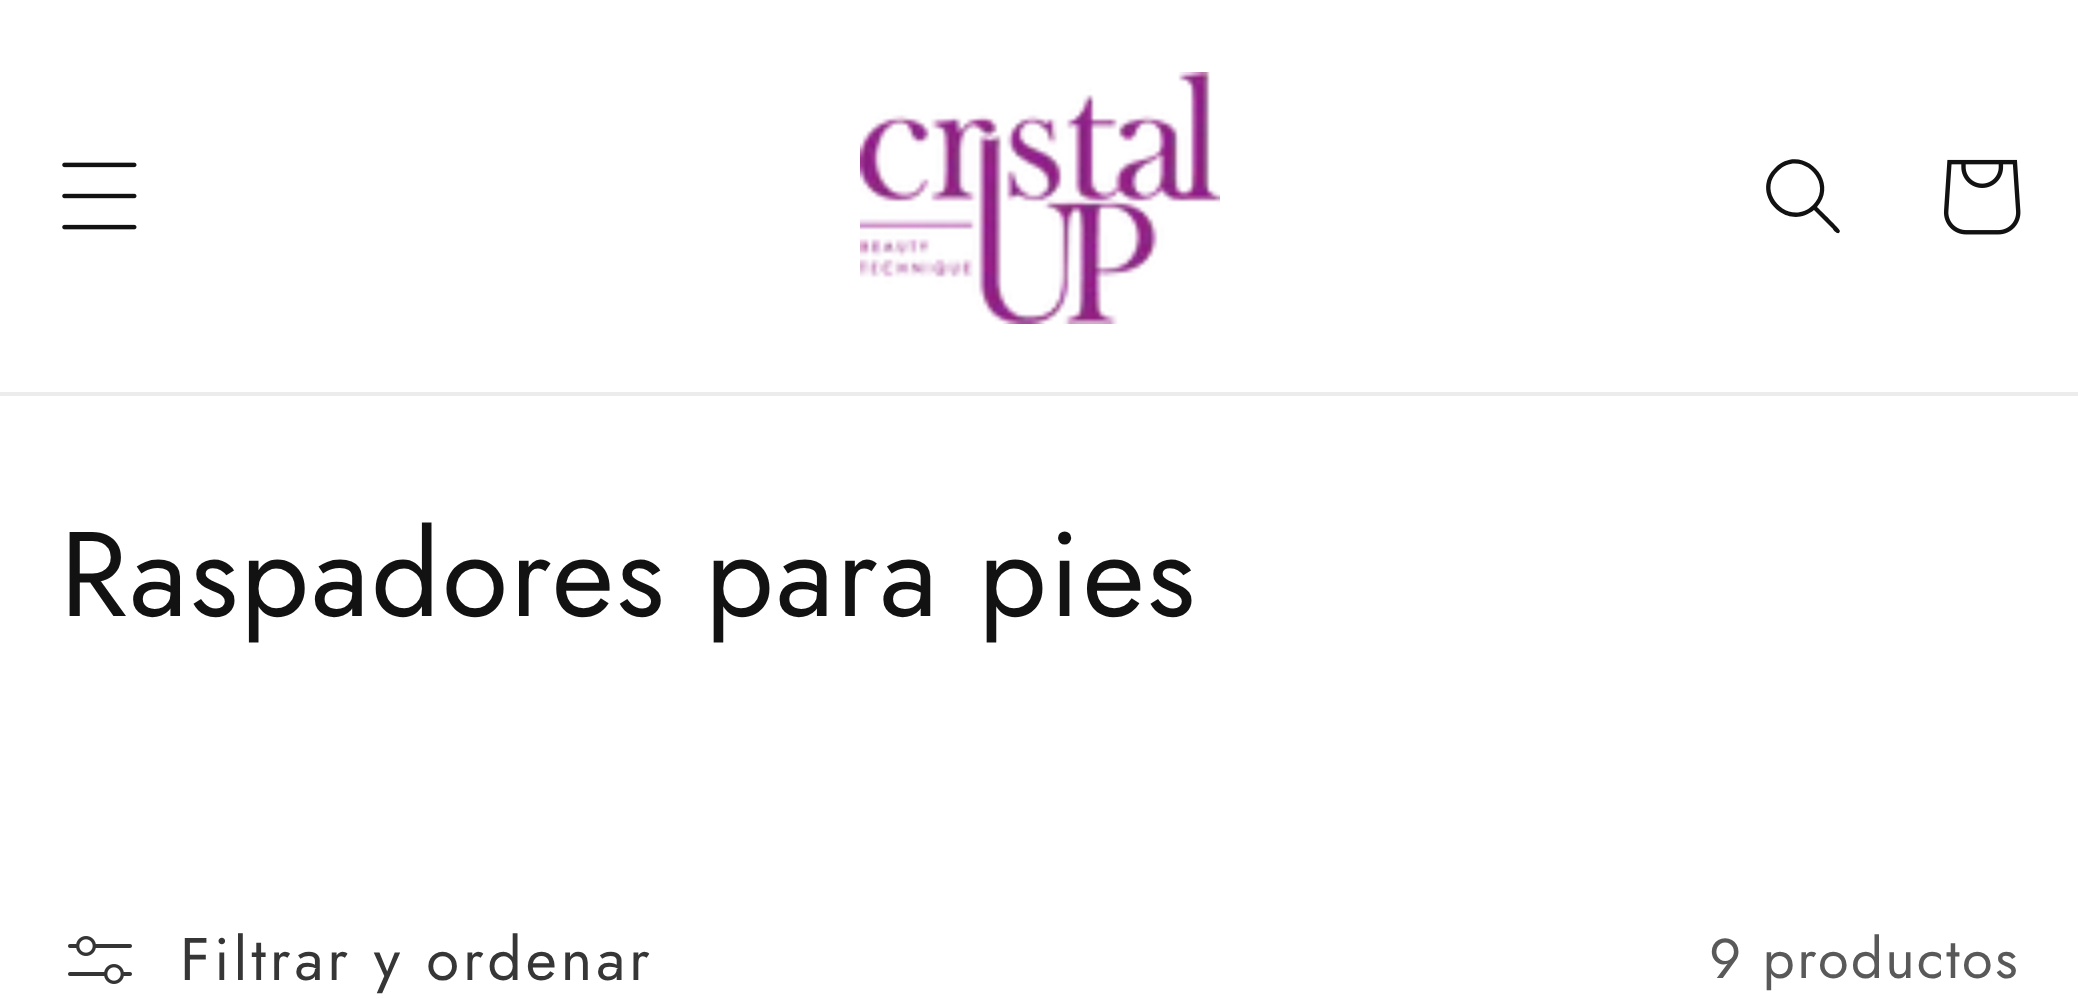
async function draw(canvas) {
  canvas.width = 2078
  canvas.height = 999
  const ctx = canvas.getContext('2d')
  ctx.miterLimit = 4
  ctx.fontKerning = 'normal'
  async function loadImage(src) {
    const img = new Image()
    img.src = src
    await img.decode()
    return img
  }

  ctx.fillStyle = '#fff'
  ctx.fillRect(0, 0, 2078, 999)
  ctx.fillStyle = '#ececec'
  ctx.fillRect(0, 392, 2078, 4)
  ctx.drawImage(await loadImage('image0.png'), 62, 162, 75, 68)
  ctx.drawImage(await loadImage('image1.png'), 860, 72, 360, 252)
  ctx.fillStyle = '#121212'
  ctx.beginPath()
  ctx.moveTo(1813, 205)
  ctx.bezierCurveTo(1790, 228, 1755, 193, 1778, 171)
  ctx.bezierCurveTo(1801, 148, 1835, 183, 1813, 205)
  ctx.closePath()
  ctx.moveTo(1814, 210)
  ctx.bezierCurveTo(1786, 233, 1749, 193, 1775, 168)
  ctx.bezierCurveTo(1801, 142, 1841, 180, 1817, 207)
  ctx.bezierCurveTo(1820, 210, 1840, 229, 1840, 231)
  ctx.lineTo(1839, 233)
  ctx.bezierCurveTo(1837, 234, 1833, 230, 1833, 229)
  ctx.closePath()
  ctx.fill('evenodd')
  ctx.drawImage(await loadImage('image2.png'), 1943, 159, 78, 76)
  ctx.letterSpacing = '2.4px'
  ctx.font = '120px Jost'
  ctx.fillText('Raspadores para pies', 60, 616)
  ctx.drawImage(await loadImage('image3.png'), 68, 936, 64, 48)
  ctx.letterSpacing = '4px'
  ctx.font = '60px Jost'
  ctx.fillStyle = '#363636'
  ctx.fillText('Filtrar y ordenar', 180, 980)
  ctx.letterSpacing = '2.4px'
  ctx.font = '56px Jost'
  ctx.fillStyle = '#595959'
  ctx.fillText('9 productos', 1709, 978)
}

draw(document.querySelector('canvas'))
